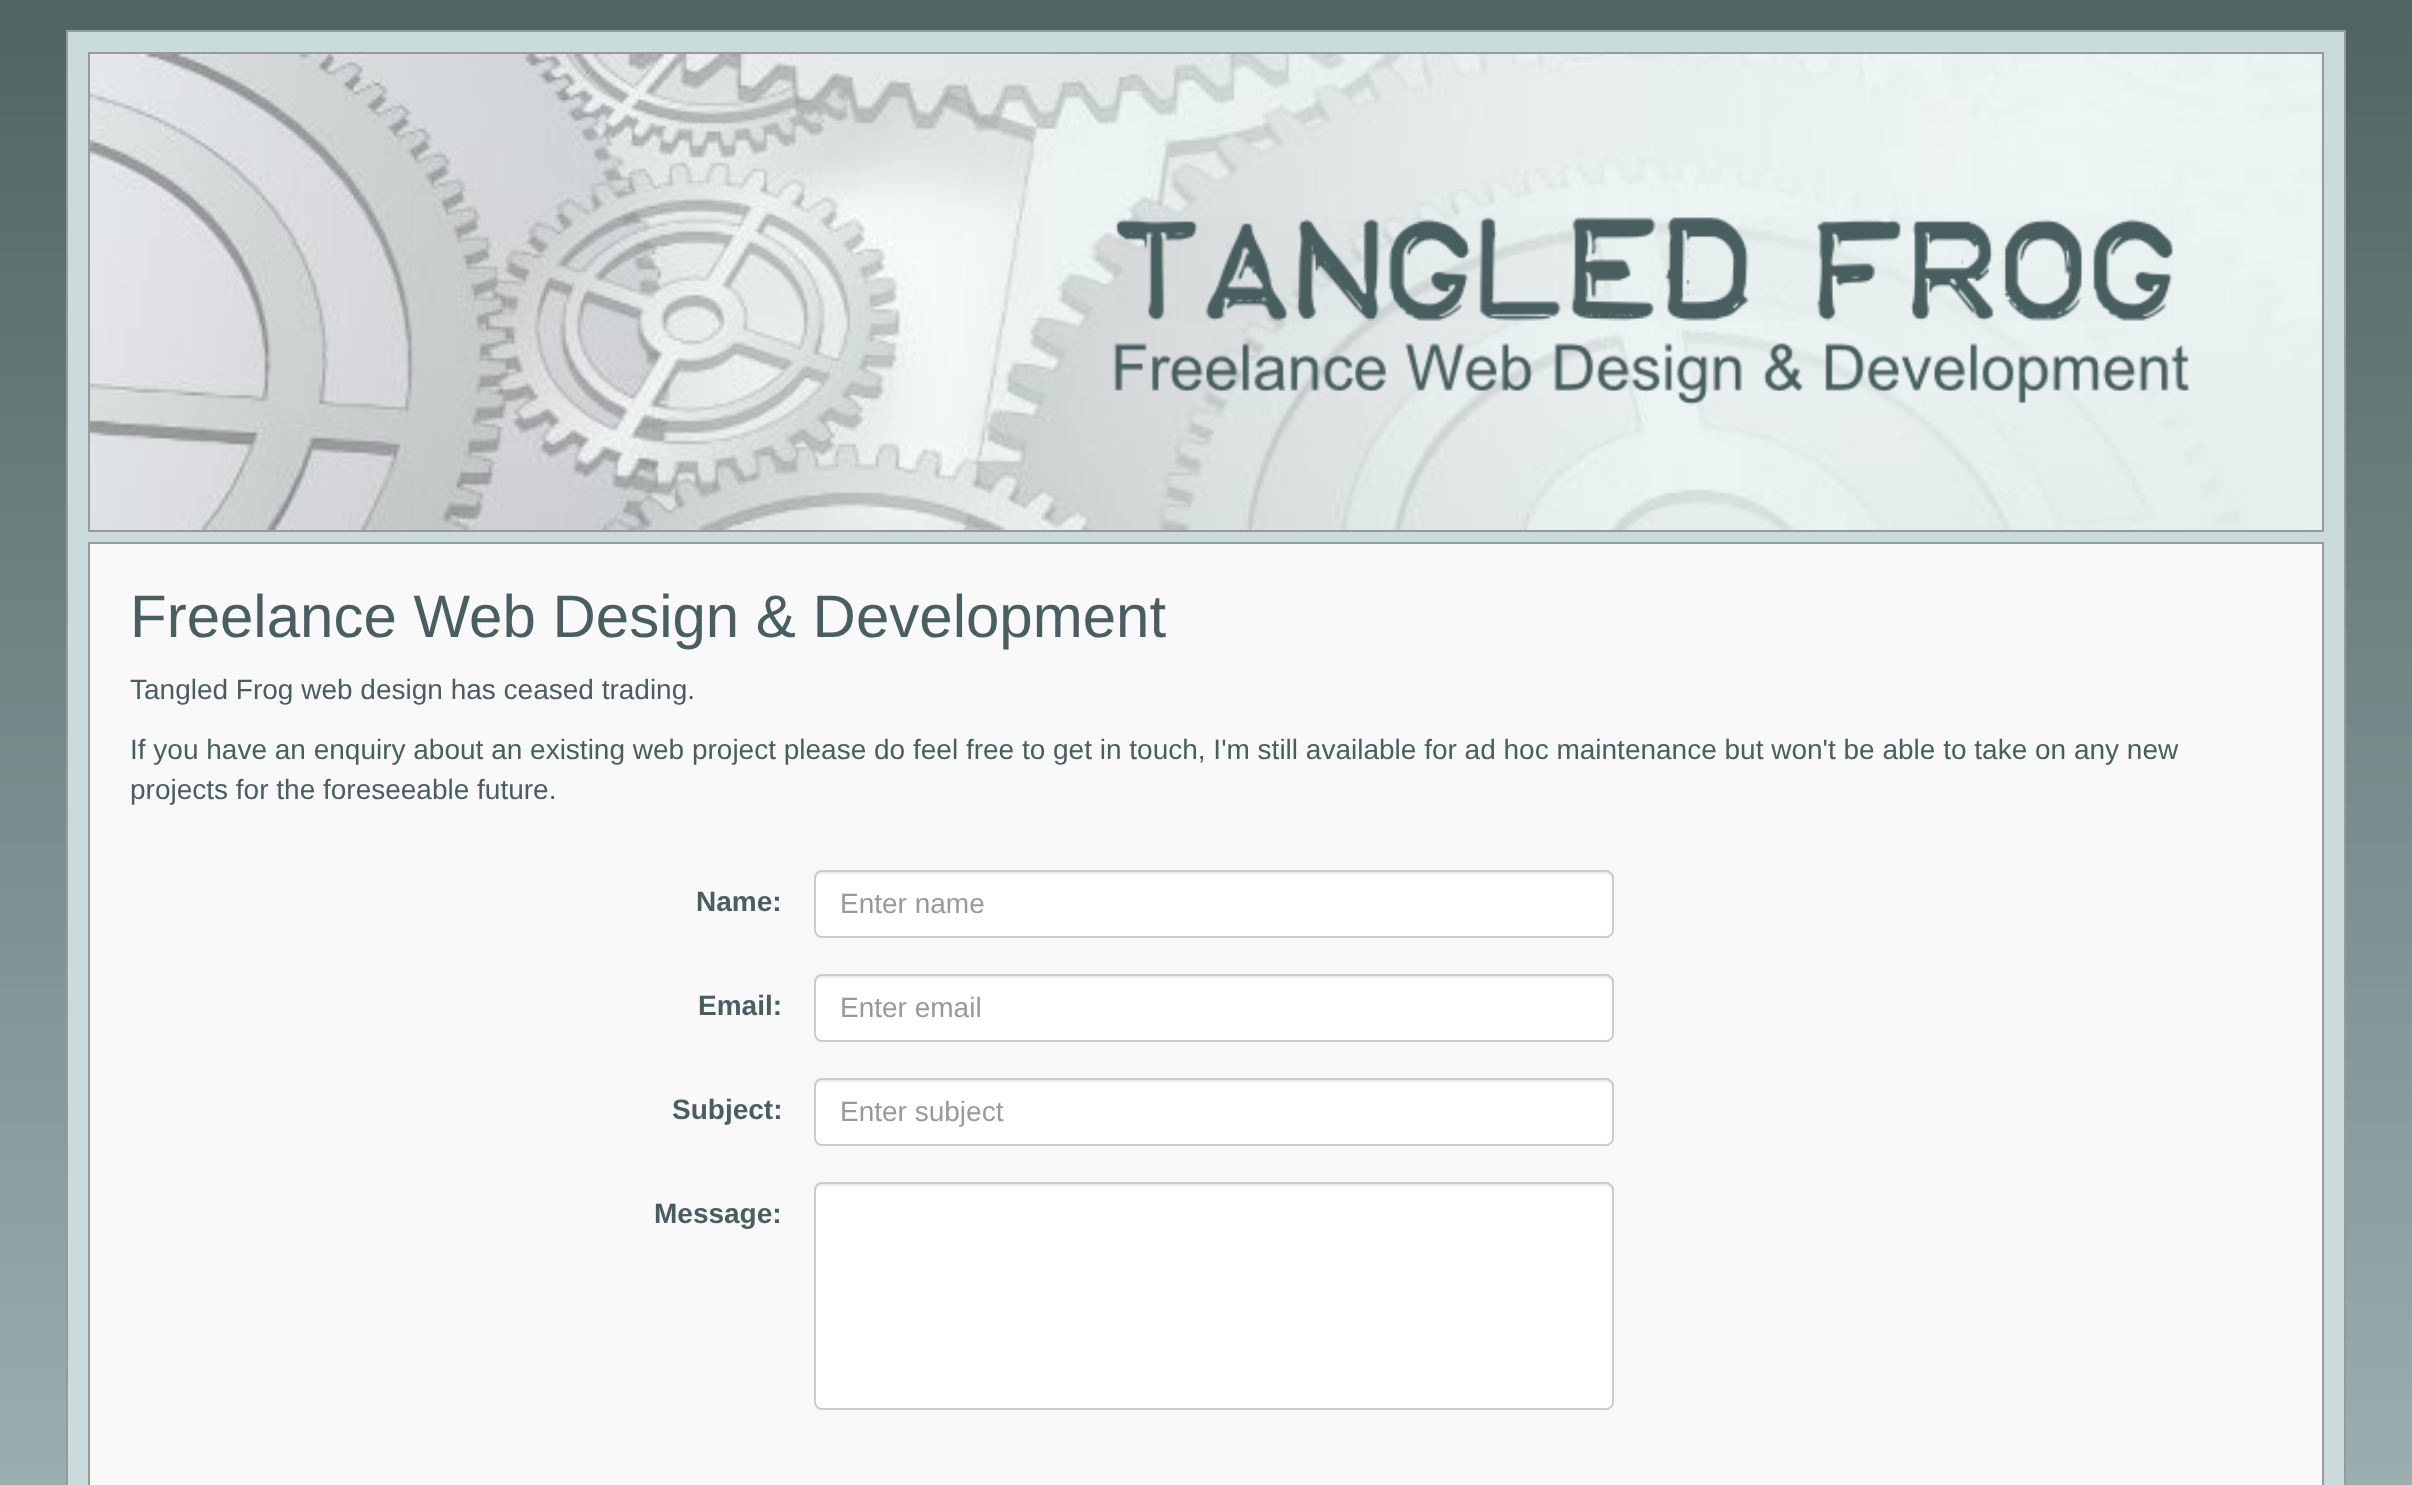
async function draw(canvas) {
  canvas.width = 2412
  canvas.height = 1485
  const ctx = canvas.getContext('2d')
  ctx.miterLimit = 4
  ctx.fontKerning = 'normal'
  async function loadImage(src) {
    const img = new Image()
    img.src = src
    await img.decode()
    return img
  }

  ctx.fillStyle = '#fff'
  ctx.fillRect(0, 0, 2412, 1485)
  ctx.drawImage(await loadImage('image0.png'), 0, 0, 2412, 1485)
  ctx.fillStyle = '#c9dbda'
  ctx.beginPath()
  ctx.rect(67, 31, 2278, 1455)
  ctx.fill()
  ctx.strokeStyle = '#999'
  ctx.lineWidth = 2
  ctx.stroke()
  ctx.drawImage(await loadImage('image1.png'), 90, 54, 2232, 476)
  ctx.strokeRect(89, 53, 2234, 478)
  ctx.drawImage(await loadImage('image2.png'), 1114, 217, 1059, 104)
  ctx.drawImage(await loadImage('image3.png'), 1113, 343, 1078, 63)
  ctx.fillStyle = '#f9f9f9'
  ctx.beginPath()
  ctx.rect(89, 543, 2234, 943)
  ctx.fill()
  ctx.stroke()
  ctx.font = '60px Liberation Sans'
  ctx.fillStyle = '#485e5f'
  ctx.fillText('Freelance Web Design & Development', 130, 637)
  ctx.font = '28px Liberation Sans'
  ctx.fillText('Tangled Frog web design has ceased trading.', 130, 699)
  ctx.fillText('If you have an enquiry about an existing web project please do feel free to get in touch, I\'m still available for ad hoc maintenance but won\'t be able to take on any new', 130, 759)
  ctx.fillText('projects for the foreseeable future.', 130, 799)
  ctx.font = 'bold 28px Liberation Sans'
  ctx.fillText('Name:', 696, 911)
  ctx.fillStyle = '#fff'
  ctx.beginPath()
  ctx.roundRect(814, 870, 800, 68, 8)
  ctx.fill()
  ctx.fillStyle = '#ececec'
  ctx.beginPath()
  ctx.moveTo(822, 874)
  ctx.lineTo(1606, 874)
  ctx.bezierCurveTo(1609, 874, 1612, 877, 1612, 880)
  ctx.lineTo(1612, 878)
  ctx.bezierCurveTo(1612, 875, 1609, 872, 1606, 872)
  ctx.lineTo(822, 872)
  ctx.bezierCurveTo(819, 872, 816, 875, 816, 878)
  ctx.lineTo(816, 880)
  ctx.bezierCurveTo(816, 877, 819, 874, 822, 874)
  ctx.closePath()
  ctx.fill()
  ctx.beginPath()
  ctx.roundRect(815, 871, 798, 66, 7)
  ctx.strokeStyle = '#ccc'
  ctx.stroke()
  ctx.font = '28px Liberation Sans'
  ctx.fillStyle = '#999'
  ctx.fillText('Enter name', 840, 913)
  ctx.font = 'bold 28px Liberation Sans'
  ctx.fillStyle = '#485e5f'
  ctx.fillText('Email:', 698, 1015)
  ctx.fillStyle = '#fff'
  ctx.beginPath()
  ctx.roundRect(814, 974, 800, 68, 8)
  ctx.fill()
  ctx.fillStyle = '#ececec'
  ctx.beginPath()
  ctx.moveTo(822, 978)
  ctx.lineTo(1606, 978)
  ctx.bezierCurveTo(1609, 978, 1612, 981, 1612, 984)
  ctx.lineTo(1612, 982)
  ctx.bezierCurveTo(1612, 979, 1609, 976, 1606, 976)
  ctx.lineTo(822, 976)
  ctx.bezierCurveTo(819, 976, 816, 979, 816, 982)
  ctx.lineTo(816, 984)
  ctx.bezierCurveTo(816, 981, 819, 978, 822, 978)
  ctx.closePath()
  ctx.fill()
  ctx.beginPath()
  ctx.roundRect(815, 975, 798, 66, 7)
  ctx.stroke()
  ctx.font = '28px Liberation Sans'
  ctx.fillStyle = '#999'
  ctx.fillText('Enter email', 840, 1017)
  ctx.font = 'bold 28px Liberation Sans'
  ctx.fillStyle = '#485e5f'
  ctx.fillText('Subject:', 672, 1119)
  ctx.fillStyle = '#fff'
  ctx.beginPath()
  ctx.roundRect(814, 1078, 800, 68, 8)
  ctx.fill()
  ctx.fillStyle = '#ececec'
  ctx.beginPath()
  ctx.moveTo(822, 1082)
  ctx.lineTo(1606, 1082)
  ctx.bezierCurveTo(1609, 1082, 1612, 1085, 1612, 1088)
  ctx.lineTo(1612, 1086)
  ctx.bezierCurveTo(1612, 1083, 1609, 1080, 1606, 1080)
  ctx.lineTo(822, 1080)
  ctx.bezierCurveTo(819, 1080, 816, 1083, 816, 1086)
  ctx.lineTo(816, 1088)
  ctx.bezierCurveTo(816, 1085, 819, 1082, 822, 1082)
  ctx.closePath()
  ctx.fill()
  ctx.beginPath()
  ctx.roundRect(815, 1079, 798, 66, 7)
  ctx.stroke()
  ctx.font = '28px Liberation Sans'
  ctx.fillStyle = '#999'
  ctx.fillText('Enter subject', 840, 1121)
  ctx.font = 'bold 28px Liberation Sans'
  ctx.fillStyle = '#485e5f'
  ctx.fillText('Message:', 654, 1223)
  ctx.fillStyle = '#fff'
  ctx.beginPath()
  ctx.roundRect(814, 1182, 800, 228, 8)
  ctx.fill()
  ctx.fillStyle = '#ececec'
  ctx.beginPath()
  ctx.moveTo(822, 1186)
  ctx.lineTo(1606, 1186)
  ctx.bezierCurveTo(1609, 1186, 1612, 1189, 1612, 1192)
  ctx.lineTo(1612, 1190)
  ctx.bezierCurveTo(1612, 1187, 1609, 1184, 1606, 1184)
  ctx.lineTo(822, 1184)
  ctx.bezierCurveTo(819, 1184, 816, 1187, 816, 1190)
  ctx.lineTo(816, 1192)
  ctx.bezierCurveTo(816, 1189, 819, 1186, 822, 1186)
  ctx.closePath()
  ctx.fill()
  ctx.beginPath()
  ctx.roundRect(815, 1183, 798, 226, 7)
  ctx.stroke()
}

draw(document.querySelector('canvas'))
